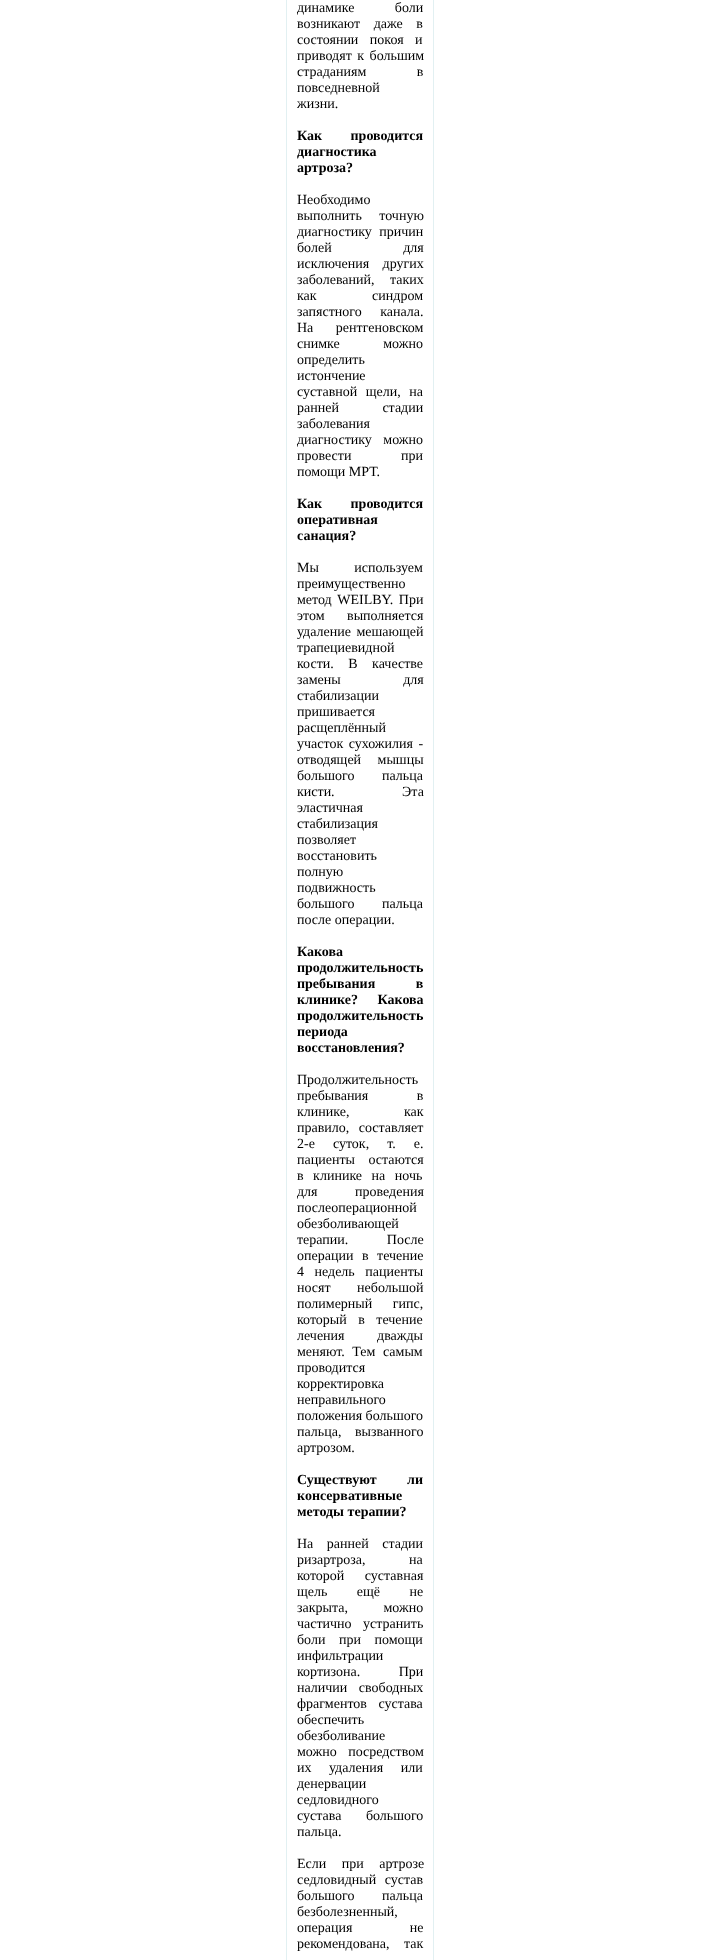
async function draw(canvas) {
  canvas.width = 709
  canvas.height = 1960
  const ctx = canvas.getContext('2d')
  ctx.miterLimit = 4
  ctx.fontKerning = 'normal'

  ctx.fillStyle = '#fff'
  ctx.fillRect(0, 0, 709, 1960)
  ctx.strokeStyle = '#e2f0f2'
  ctx.strokeRect(286.5, -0.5, 147, 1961)
  ctx.wordSpacing = '37px'
  ctx.font = '14px Liberation Serif'
  ctx.fillStyle = '#000'
  ctx.fillText('динамике боли', 297, 12)
  ctx.wordSpacing = '10px'
  ctx.fillText('возникают даже в', 297, 28)
  ctx.wordSpacing = '8px'
  ctx.fillText('состоянии покоя и', 297, 44)
  ctx.wordSpacing = '2px'
  ctx.fillText('приводят к большим', 297, 60)
  ctx.wordSpacing = '47px'
  ctx.fillText('страданиям в', 297, 76)
  ctx.wordSpacing = '0px'
  ctx.fillText('повседневной', 297, 92)
  ctx.fillText('жизни.', 297, 108)
  ctx.wordSpacing = '25px'
  ctx.font = 'bold 14px Liberation Serif'
  ctx.fillText('Как проводится', 297, 140)
  ctx.wordSpacing = '0px'
  ctx.fillText('диагностика', 297, 156)
  ctx.fillText('артроза?', 297, 172)
  ctx.font = '14px Liberation Serif'
  ctx.fillText('Необходимо', 297, 204)
  ctx.wordSpacing = '14px'
  ctx.fillText('выполнить точную', 297, 220)
  ctx.wordSpacing = '4px'
  ctx.fillText('диагностику причин', 297, 236)
  ctx.wordSpacing = '68px'
  ctx.fillText('болей для', 297, 252)
  ctx.wordSpacing = '10px'
  ctx.fillText('исключения других', 297, 268)
  ctx.wordSpacing = '12px'
  ctx.fillText('заболеваний, таких', 297, 284)
  ctx.wordSpacing = '52px'
  ctx.fillText('как синдром', 297, 300)
  ctx.wordSpacing = '15px'
  ctx.fillText('запястного канала.', 297, 316)
  ctx.wordSpacing = '19px'
  ctx.fillText('На рентгеновском', 297, 332)
  ctx.wordSpacing = '40px'
  ctx.fillText('снимке можно', 297, 348)
  ctx.wordSpacing = '0px'
  ctx.fillText('определить', 297, 364)
  ctx.fillText('истончение', 297, 380)
  ctx.wordSpacing = '5px'
  ctx.fillText('суставной щели, на', 297, 396)
  ctx.wordSpacing = '40px'
  ctx.fillText('ранней стадии', 297, 412)
  ctx.wordSpacing = '0px'
  ctx.fillText('заболевания', 297, 428)
  ctx.wordSpacing = '8px'
  ctx.fillText('диагностику можно', 297, 444)
  ctx.wordSpacing = '46px'
  ctx.fillText('провести при', 297, 460)
  ctx.wordSpacing = '0px'
  ctx.fillText('помощи МРТ.', 297, 476)
  ctx.wordSpacing = '25px'
  ctx.font = 'bold 14px Liberation Serif'
  ctx.fillText('Как проводится', 297, 508)
  ctx.wordSpacing = '0px'
  ctx.fillText('оперативная', 297, 524)
  ctx.fillText('санация?', 297, 540)
  ctx.wordSpacing = '32px'
  ctx.font = '14px Liberation Serif'
  ctx.fillText('Мы используем', 297, 572)
  ctx.wordSpacing = '0px'
  ctx.fillText('преимущественно', 297, 588)
  ctx.wordSpacing = '2px'
  ctx.fillText('метод WEILBY. При', 297, 604)
  ctx.wordSpacing = '19px'
  ctx.fillText('этом выполняется', 297, 620)
  ctx.wordSpacing = '2px'
  ctx.fillText('удаление мешающей', 297, 636)
  ctx.wordSpacing = '0px'
  ctx.fillText('трапециевидной', 297, 652)
  ctx.wordSpacing = '11px'
  ctx.fillText('кости. В качестве', 297, 668)
  ctx.wordSpacing = '59px'
  ctx.fillText('замены для', 297, 684)
  ctx.wordSpacing = '0px'
  ctx.fillText('стабилизации', 297, 700)
  ctx.fillText('пришивается', 297, 716)
  ctx.fillText('расщеплённый', 297, 732)
  ctx.wordSpacing = '2px'
  ctx.fillText('участок сухожилия -', 297, 748)
  ctx.wordSpacing = '13px'
  ctx.fillText('отводящей мышцы', 297, 764)
  ctx.wordSpacing = '24px'
  ctx.fillText('большого пальца', 297, 780)
  ctx.wordSpacing = '64px'
  ctx.fillText('кисти. Эта', 297, 796)
  ctx.wordSpacing = '0px'
  ctx.fillText('эластичная', 297, 812)
  ctx.fillText('стабилизация', 297, 828)
  ctx.fillText('позволяет', 297, 844)
  ctx.fillText('восстановить', 297, 860)
  ctx.fillText('полную', 297, 876)
  ctx.fillText('подвижность', 297, 892)
  ctx.wordSpacing = '24px'
  ctx.fillText('большого пальца', 297, 908)
  ctx.wordSpacing = '0px'
  ctx.fillText('после операции.', 297, 924)
  ctx.font = 'bold 14px Liberation Serif'
  ctx.fillText('Какова', 297, 956)
  ctx.fillText('продолжительность', 297, 972)
  ctx.wordSpacing = '37px'
  ctx.fillText('пребывания в', 297, 988)
  ctx.wordSpacing = '16px'
  ctx.fillText('клинике? Какова', 297, 1004)
  ctx.wordSpacing = '0px'
  ctx.fillText('продолжительность', 297, 1020)
  ctx.fillText('периода', 297, 1036)
  ctx.fillText('восстановления?', 297, 1052)
  ctx.font = '14px Liberation Serif'
  ctx.fillText('Продолжительность', 297, 1084)
  ctx.wordSpacing = '45px'
  ctx.fillText('пребывания в', 297, 1100)
  ctx.wordSpacing = '51px'
  ctx.fillText('клинике, как', 297, 1116)
  ctx.wordSpacing = '6px'
  ctx.fillText('правило, составляет', 297, 1132)
  ctx.wordSpacing = '14.5px'
  ctx.fillText('2-е суток, т. е.', 297, 1148)
  ctx.wordSpacing = '10px'
  ctx.fillText('пациенты остаются', 297, 1164)
  ctx.wordSpacing = '6px'
  ctx.fillText('в клинике на ночь', 297, 1180)
  ctx.wordSpacing = '34px'
  ctx.fillText('для проведения', 297, 1196)
  ctx.wordSpacing = '0px'
  ctx.fillText('послеоперационной', 297, 1212)
  ctx.fillText('обезболивающей', 297, 1228)
  ctx.wordSpacing = '35px'
  ctx.fillText('терапии. После', 297, 1244)
  ctx.wordSpacing = '5px'
  ctx.fillText('операции в течение', 297, 1260)
  ctx.wordSpacing = '7px'
  ctx.fillText('4 недель пациенты', 297, 1276)
  ctx.wordSpacing = '23px'
  ctx.fillText('носят небольшой', 297, 1292)
  ctx.wordSpacing = '17px'
  ctx.fillText('полимерный гипс,', 297, 1308)
  ctx.wordSpacing = '8px'
  ctx.fillText('который в течение', 297, 1324)
  ctx.wordSpacing = '29px'
  ctx.fillText('лечения дважды', 297, 1340)
  ctx.wordSpacing = '4px'
  ctx.fillText('меняют. Тем самым', 297, 1356)
  ctx.wordSpacing = '0px'
  ctx.fillText('проводится', 297, 1372)
  ctx.fillText('корректировка', 297, 1388)
  ctx.fillText('неправильного', 297, 1404)
  ctx.fillText('положения большого', 297, 1420)
  ctx.wordSpacing = '10px'
  ctx.fillText('пальца, вызванного', 297, 1436)
  ctx.wordSpacing = '0px'
  ctx.fillText('артрозом.', 297, 1452)
  ctx.wordSpacing = '27px'
  ctx.font = 'bold 14px Liberation Serif'
  ctx.fillText('Существуют ли', 297, 1484)
  ctx.wordSpacing = '0px'
  ctx.fillText('консервативные', 297, 1500)
  ctx.fillText('методы терапии?', 297, 1516)
  ctx.wordSpacing = '10px'
  ctx.font = '14px Liberation Serif'
  ctx.fillText('На ранней стадии', 297, 1548)
  ctx.wordSpacing = '40px'
  ctx.fillText('ризартроза, на', 297, 1564)
  ctx.wordSpacing = '17px'
  ctx.fillText('которой суставная', 297, 1580)
  ctx.wordSpacing = '26px'
  ctx.fillText('щель ещё не', 297, 1596)
  ctx.wordSpacing = '32px'
  ctx.fillText('закрыта, можно', 297, 1612)
  ctx.wordSpacing = '8px'
  ctx.fillText('частично устранить', 297, 1628)
  ctx.wordSpacing = '10px'
  ctx.fillText('боли при помощи', 297, 1644)
  ctx.wordSpacing = '0px'
  ctx.fillText('инфильтрации', 297, 1660)
  ctx.wordSpacing = '35px'
  ctx.fillText('кортизона. При', 297, 1676)
  ctx.wordSpacing = '8px'
  ctx.fillText('наличии свободных', 297, 1692)
  ctx.fillText('фрагментов сустава', 297, 1708)
  ctx.wordSpacing = '0px'
  ctx.fillText('обеспечить', 297, 1724)
  ctx.fillText('обезболивание', 297, 1740)
  ctx.wordSpacing = '8px'
  ctx.fillText('можно посредством', 297, 1756)
  ctx.wordSpacing = '14px'
  ctx.fillText('их удаления или', 297, 1772)
  ctx.wordSpacing = '0px'
  ctx.fillText('денервации', 297, 1788)
  ctx.fillText('седловидного', 297, 1804)
  ctx.wordSpacing = '21px'
  ctx.fillText('сустава большого', 297, 1820)
  ctx.wordSpacing = '0px'
  ctx.fillText('пальца.', 297, 1836)
  ctx.wordSpacing = '12px'
  ctx.fillText('Если при артрозе', 297, 1868)
  ctx.wordSpacing = '5px'
  ctx.fillText('седловидный сустав', 297, 1884)
  ctx.wordSpacing = '24px'
  ctx.fillText('большого пальца', 297, 1900)
  ctx.wordSpacing = '0px'
  ctx.fillText('безболезненный,', 297, 1916)
  ctx.wordSpacing = '54px'
  ctx.fillText('операция не', 297, 1932)
  ctx.wordSpacing = '11px'
  ctx.fillText('рекомендована, так', 297, 1948)
}

draw(document.querySelector('canvas'))
